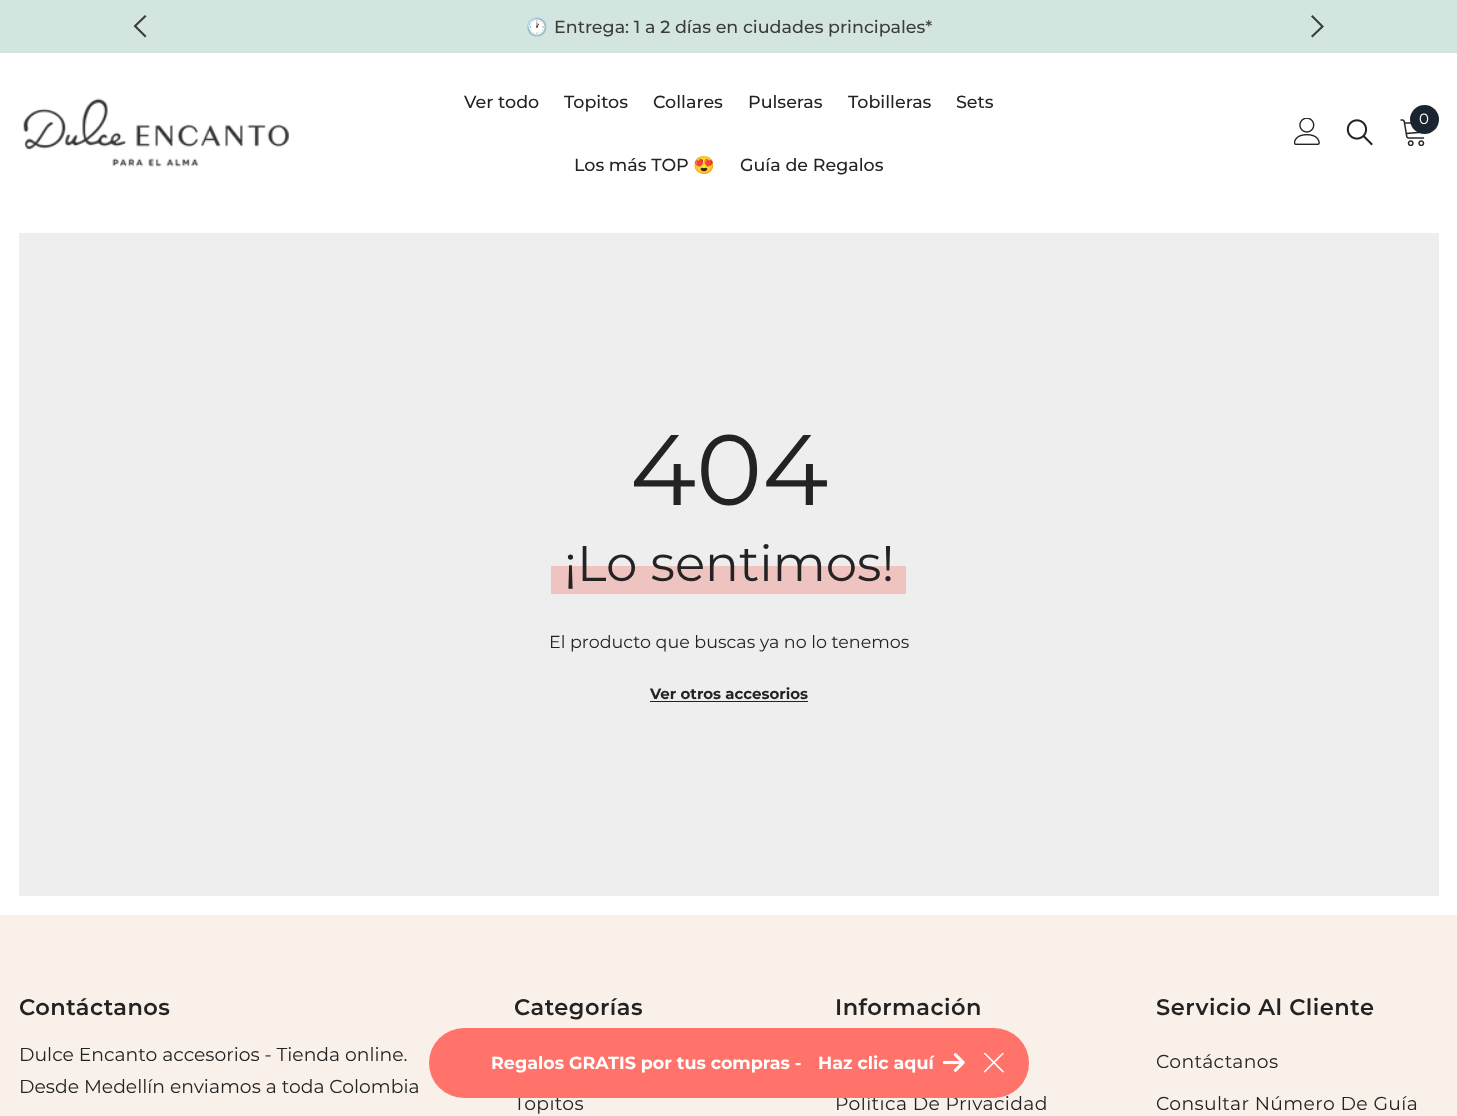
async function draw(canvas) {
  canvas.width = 1457
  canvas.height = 1116
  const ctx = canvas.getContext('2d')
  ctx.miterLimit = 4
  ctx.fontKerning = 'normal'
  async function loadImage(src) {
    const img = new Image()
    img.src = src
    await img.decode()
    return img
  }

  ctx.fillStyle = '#fff'
  ctx.fillRect(0, 0, 1457, 1116)
  ctx.fillStyle = '#d3e5df'
  ctx.fillRect(0, 0, 1457, 53)
  ctx.fillStyle = '#3c3c3c'
  ctx.beginPath()
  ctx.moveTo(146.5, 16.5)
  ctx.lineTo(145, 15)
  ctx.lineTo(133.5, 26)
  ctx.lineTo(145, 37.5)
  ctx.lineTo(146.5, 36)
  ctx.lineTo(136.5, 26)
  ctx.closePath()
  ctx.fill()
  ctx.font = 'bold 17.5px Noto Color Emoji'
  ctx.fillText('🕐', 526, 33)
  ctx.font = '500 17.5px Montserrat'
  ctx.fillText('Entrega: 1 a 2 días en ciudades principales*', 554, 33)
  ctx.beginPath()
  ctx.moveTo(1312.5, 15)
  ctx.lineTo(1311, 16.5)
  ctx.lineTo(1321, 26.5)
  ctx.lineTo(1311, 36)
  ctx.lineTo(1312.5, 37.5)
  ctx.lineTo(1324, 26.5)
  ctx.closePath()
  ctx.fill()
  ctx.drawImage(await loadImage('image0.png'), 23, 98, 267, 69)
  ctx.fillStyle = '#232323'
  ctx.fillText('Ver todo', 464, 108)
  ctx.fillText('Topitos', 564, 108)
  ctx.fillText('Collares', 653, 108)
  ctx.fillText('Pulseras', 748, 108)
  ctx.fillText('Tobilleras', 848, 108)
  ctx.fillText('Sets', 956, 108)
  ctx.fillText('Los más TOP', 574, 171)
  ctx.font = '17.5px Noto Color Emoji'
  ctx.fillText('😍', 693, 171)
  ctx.font = '500 17.5px Montserrat'
  ctx.fillText('Guía de Regalos', 740, 171)
  ctx.drawImage(await loadImage('image1.png'), 1294, 118, 26, 27)
  ctx.drawImage(await loadImage('image2.png'), 1346, 119, 27, 27)
  ctx.drawImage(await loadImage('image3.png'), 1400, 119, 25, 27)
  ctx.fillStyle = '#1a2531'
  ctx.beginPath()
  ctx.arc(1424.5, 119.5, 14.5, 0, 2 * Math.PI)
  ctx.fill()
  ctx.font = '15px Montserrat'
  ctx.fillStyle = '#fff'
  ctx.fillText('0', 1419, 124)
  ctx.fillStyle = '#eee'
  ctx.fillRect(19, 233, 1420, 663)
  ctx.font = '100px Montserrat'
  ctx.fillStyle = '#232323'
  ctx.fillText('404', 630, 505)
  ctx.fillStyle = '#efc3c0'
  ctx.fillRect(551, 566, 355, 28)
  ctx.font = '50px Montserrat'
  ctx.fillStyle = '#232323'
  ctx.fillText('¡Lo sentimos!', 564, 581)
  ctx.font = '17.5px Montserrat'
  ctx.fillText('El producto que buscas ya no lo tenemos', 549, 648)
  ctx.font = 'bold 15px Montserrat'
  ctx.fillText('Ver otros accesorios', 650, 699)
  ctx.fillRect(650, 701, 158, 1)
  ctx.fillStyle = '#f9f1e9'
  ctx.fillRect(0, 915, 1457, 201)
  ctx.letterSpacing = '0.5px'
  ctx.font = '600 22.5px Montserrat'
  ctx.fillStyle = '#232323'
  ctx.fillText('Contáctanos', 19, 1015)
  ctx.letterSpacing = '0px'
  ctx.font = '18.75px Montserrat'
  ctx.fillText('Dulce Encanto accesorios - Tienda online.', 19, 1061)
  ctx.fillText('Desde Medellín enviamos a toda Colombia', 19, 1093)
  ctx.letterSpacing = '0.5px'
  ctx.font = '600 22.5px Montserrat'
  ctx.fillText('Categorías', 514, 1015)
  ctx.letterSpacing = '0.4px'
  ctx.font = '18.75px Montserrat'
  ctx.fillText('Topitos', 514, 1110)
  ctx.letterSpacing = '0.5px'
  ctx.font = '600 22.5px Montserrat'
  ctx.fillText('Información', 835, 1015)
  ctx.letterSpacing = '0.4px'
  ctx.font = '18.75px Montserrat'
  ctx.fillText('Política De Privacidad', 835, 1110)
  ctx.letterSpacing = '0.5px'
  ctx.font = '600 22.5px Montserrat'
  ctx.fillText('Servicio Al Cliente', 1156, 1015)
  ctx.letterSpacing = '0.4px'
  ctx.font = '18.75px Montserrat'
  ctx.fillText('Contáctanos', 1156, 1068)
  ctx.fillText('Consultar Número De Guía', 1156, 1110)
  ctx.fillStyle = '#ff736b'
  ctx.beginPath()
  ctx.roundRect(429, 1028, 600, 70, 35)
  ctx.fill()
  ctx.letterSpacing = '0px'
  ctx.font = 'bold 17.5px Montserrat'
  ctx.fillStyle = '#fff'
  ctx.fillText('Regalos GRATIS por tus compras -', 491, 1069)
  ctx.fillText('Haz clic aquí', 818, 1069)
  ctx.drawImage(await loadImage('image4.png'), 942, 1053, 23, 19)
  ctx.drawImage(await loadImage('image5.png'), 984, 1053, 20, 20)
}

draw(document.querySelector('canvas'))
